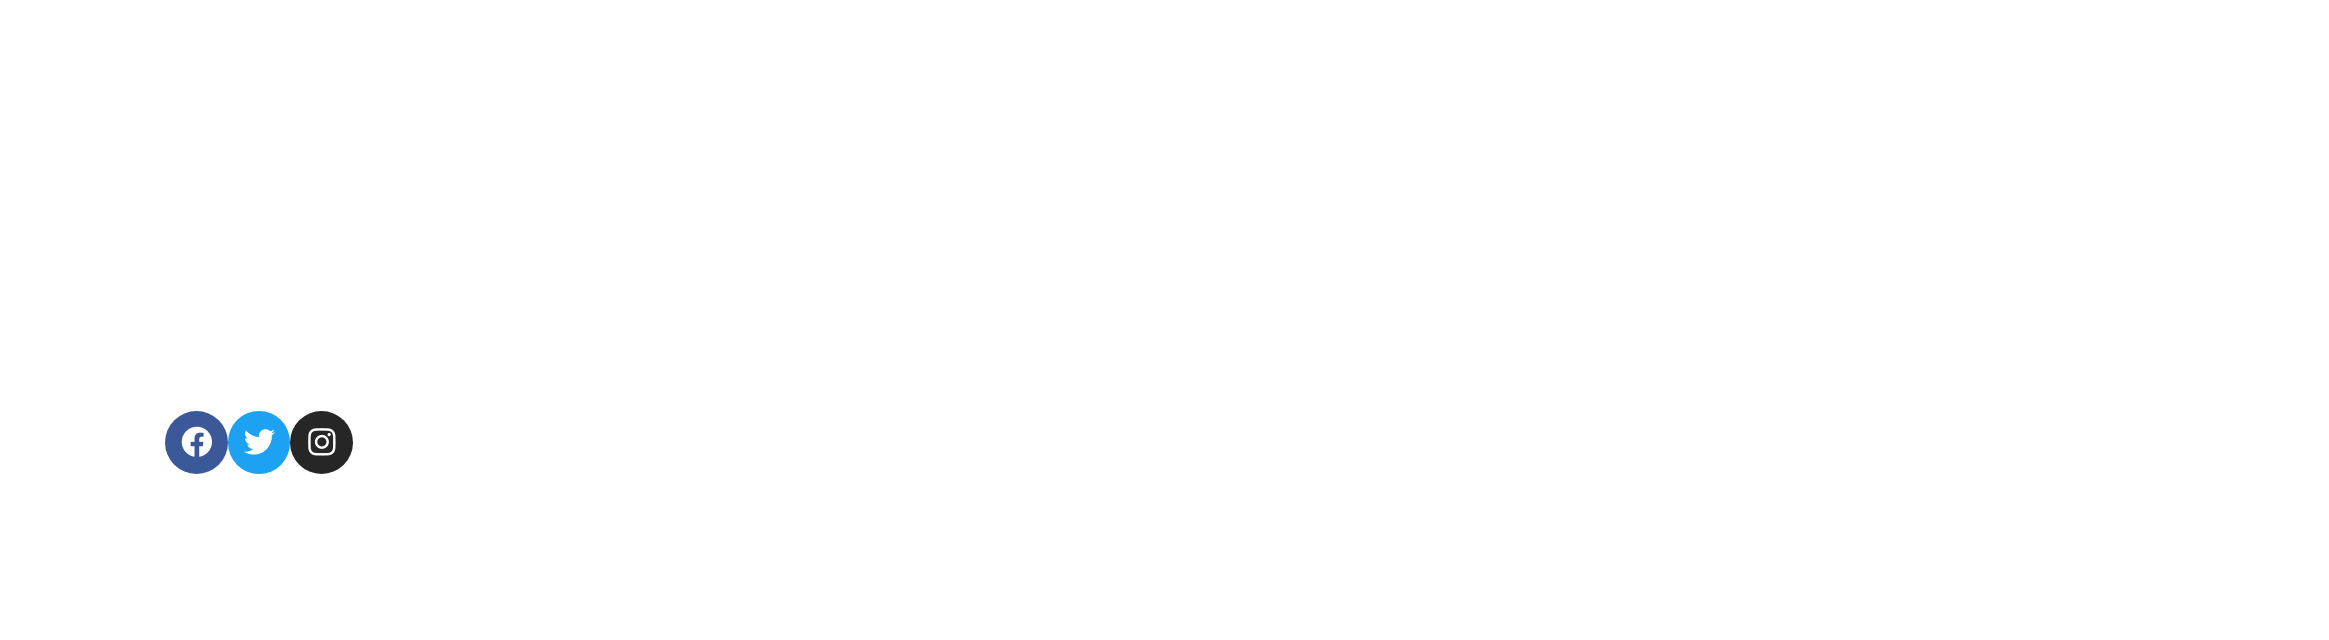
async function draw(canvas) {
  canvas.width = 2329
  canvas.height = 640
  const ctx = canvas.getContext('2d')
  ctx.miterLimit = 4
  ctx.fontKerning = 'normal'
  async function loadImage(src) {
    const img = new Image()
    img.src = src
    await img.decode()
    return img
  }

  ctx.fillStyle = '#fff'
  ctx.fillRect(0, 0, 2329, 640)
  ctx.fillStyle = '#3b5998'
  ctx.beginPath()
  ctx.arc(196.5, 442.5, 31.5, 0, 2 * Math.PI)
  ctx.fill()
  ctx.drawImage(await loadImage('image0.png'), 181, 426, 31, 31)
  ctx.fillStyle = '#1da1f2'
  ctx.beginPath()
  ctx.roundRect(228, 411, 62, 63, 31)
  ctx.fill()
  ctx.drawImage(await loadImage('image1.png'), 244, 429, 31, 26)
  ctx.fillStyle = '#262626'
  ctx.beginPath()
  ctx.arc(321.5, 442.5, 31.5, 0, 2 * Math.PI)
  ctx.fill()
  ctx.drawImage(await loadImage('image2.png'), 308, 428, 28, 28)
}

draw(document.querySelector('canvas'))
